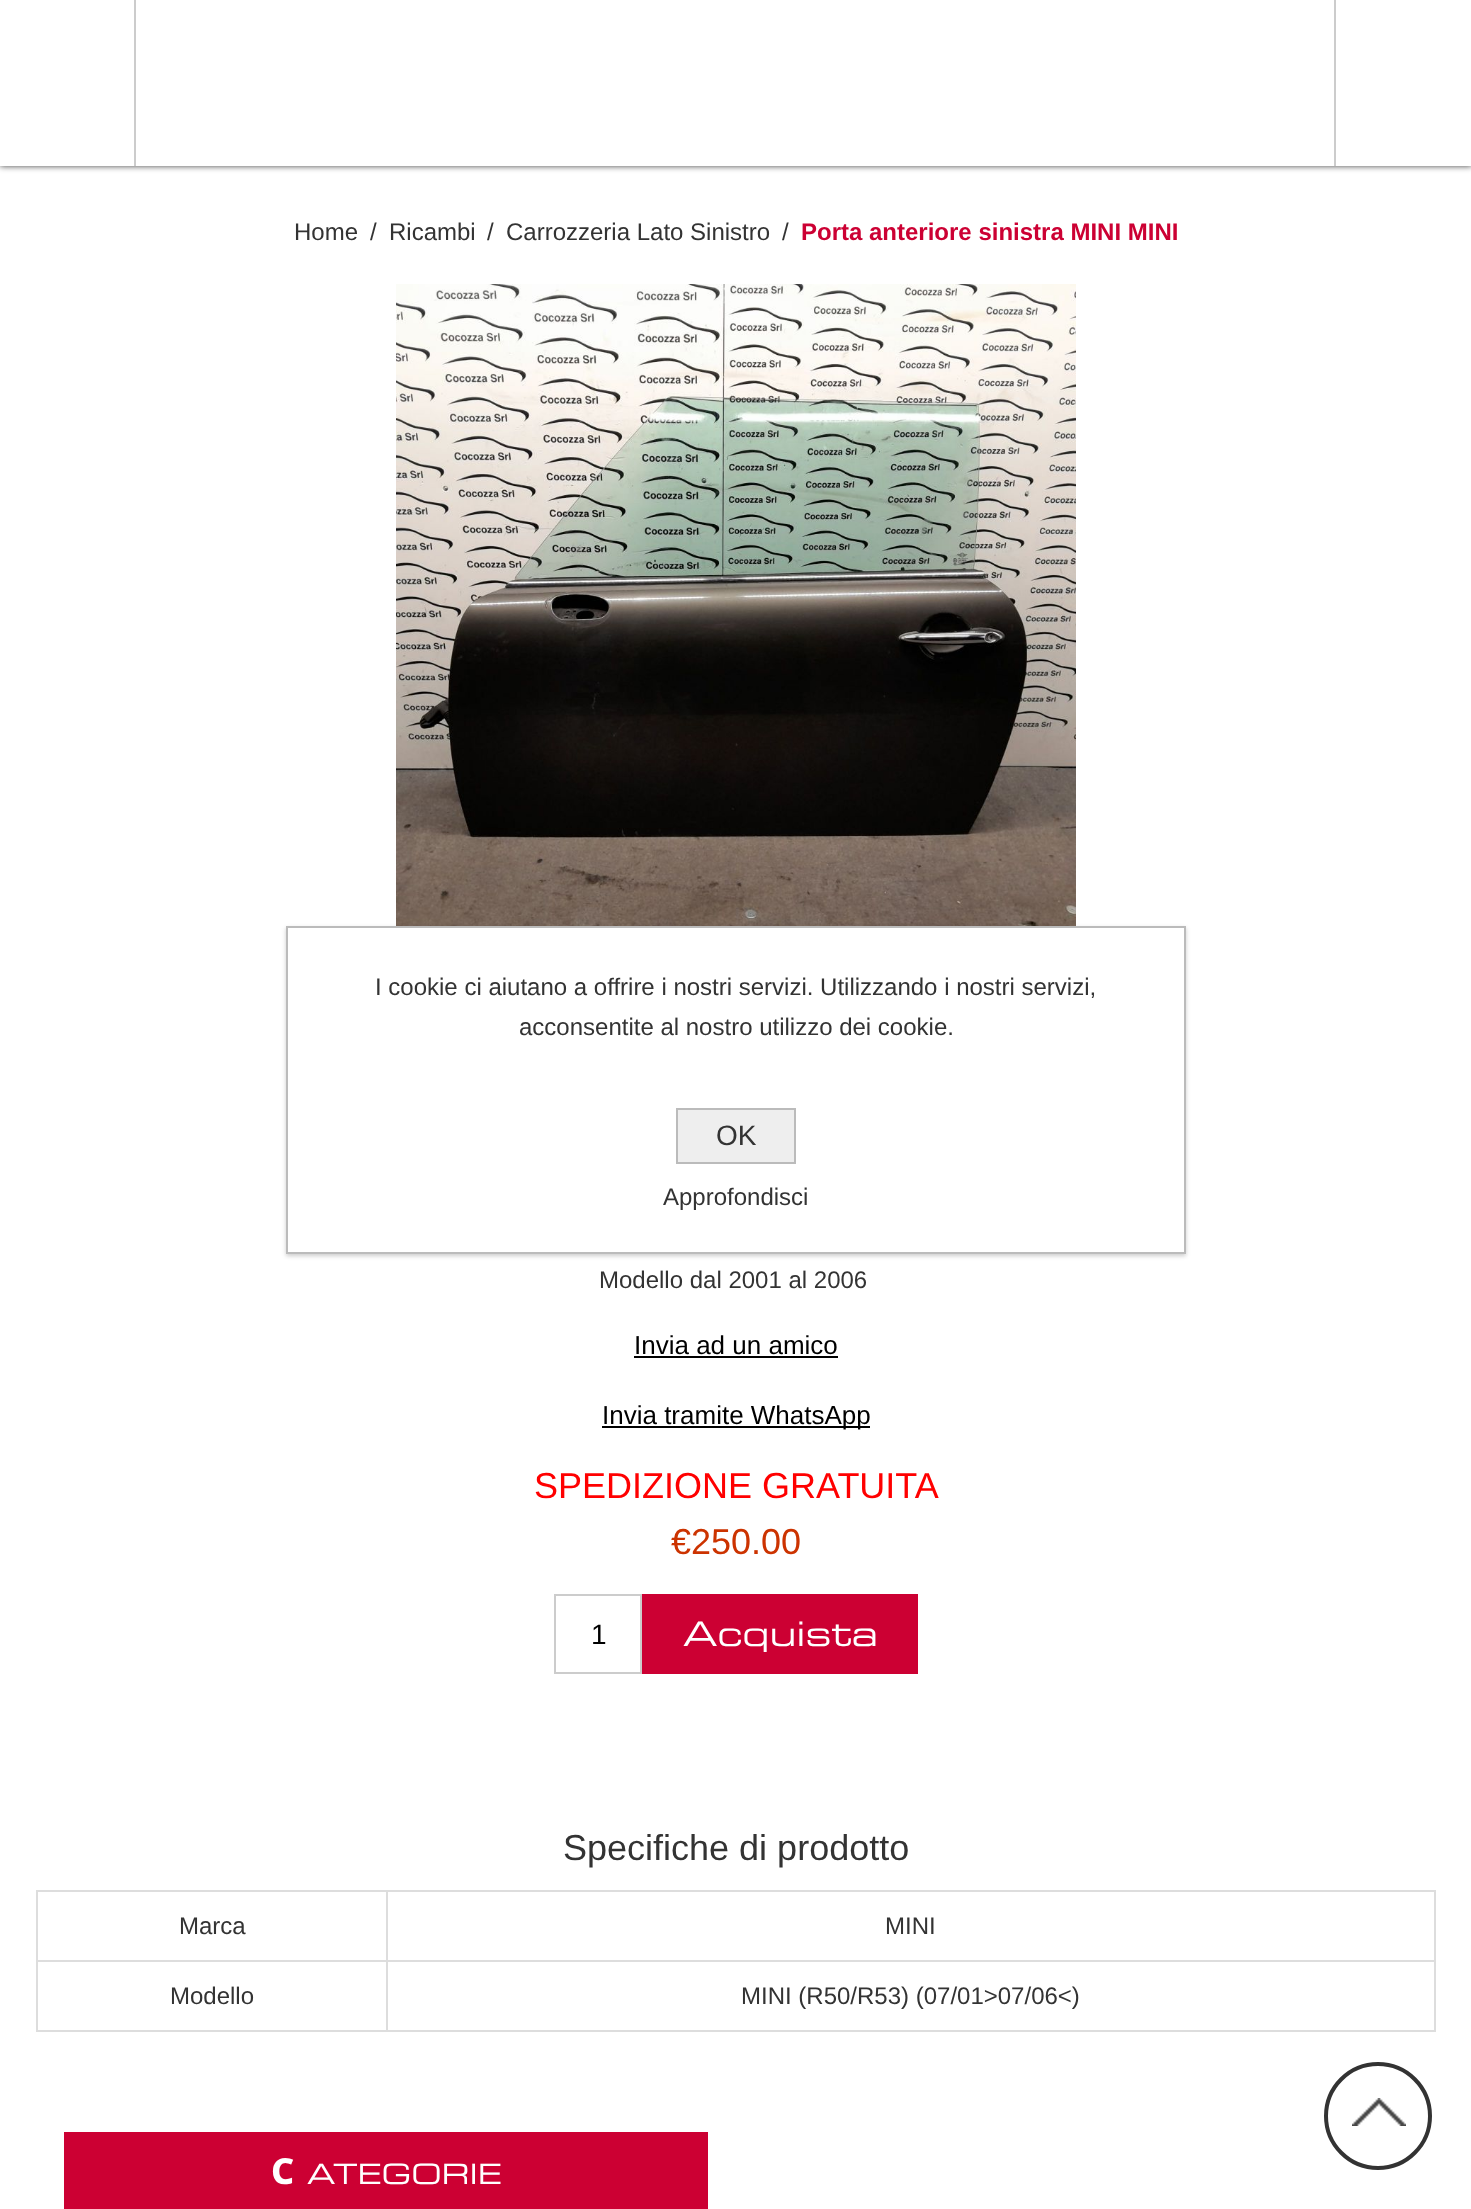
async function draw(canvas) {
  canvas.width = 1471
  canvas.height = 2209
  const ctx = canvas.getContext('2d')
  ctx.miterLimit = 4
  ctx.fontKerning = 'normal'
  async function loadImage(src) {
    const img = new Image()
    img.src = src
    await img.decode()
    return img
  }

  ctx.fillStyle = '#fff'
  ctx.fillRect(0, 0, 1471, 2209)
  ctx.fillStyle = '#000000bf'
  ctx.filter = 'blur(3px)'
  ctx.beginPath()
  ctx.rect(0, 0, 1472, 166)
  ctx.fill()
  ctx.filter = 'none'
  ctx.fillStyle = '#fff'
  ctx.fillRect(0, 0, 1471, 166)
  ctx.fillStyle = '#ccc'
  ctx.fillRect(134, 0, 2, 166)
  ctx.fillRect(1334, 0, 2, 166)
  ctx.font = '24px Liberation Sans'
  ctx.fillStyle = '#333'
  ctx.fillText('Home', 294, 240)
  ctx.fillText('/', 370, 240)
  ctx.fillText('Ricambi', 389, 240)
  ctx.fillText('/', 487, 240)
  ctx.fillText('Carrozzeria Lato Sinistro', 506, 240)
  ctx.fillText('/', 782, 240)
  ctx.font = 'bold 24px Liberation Sans'
  ctx.fillStyle = '#c03'
  ctx.fillText('Porta anteriore sinistra MINI MINI', 801, 240)
  ctx.drawImage(await loadImage('image0.png'), 396, 284, 680, 642)
  ctx.font = '24px Liberation Sans'
  ctx.fillStyle = '#333'
  ctx.fillText('Modello dal 2001 al 2006', 599, 1288)
  ctx.font = '26px Liberation Sans'
  ctx.fillStyle = '#000'
  ctx.fillText('Invia ad un amico', 634, 1354)
  ctx.fillRect(634, 1356, 204, 2)
  ctx.fillRect(602, 1426, 268, 2)
  ctx.fillText('Invia tramite WhatsApp', 602, 1424)
  ctx.font = '36px Liberation Sans'
  ctx.fillStyle = '#f00'
  ctx.fillText('SPEDIZIONE GRATUITA', 534, 1498)
  ctx.fillStyle = '#c30'
  ctx.fillText('€250.00', 671, 1554)
  ctx.strokeStyle = '#ccc'
  ctx.lineWidth = 2
  ctx.strokeRect(555, 1595, 86, 78)
  ctx.font = '28px Liberation Sans'
  ctx.fillStyle = '#000'
  ctx.fillText('1', 591, 1644)
  ctx.fillStyle = '#c03'
  ctx.fillRect(642, 1594, 276, 80)
  ctx.font = '34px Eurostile'
  ctx.fillStyle = '#fff'
  ctx.fillText('Acquista', 683, 1646)
  ctx.font = '36px Liberation Sans'
  ctx.fillStyle = '#333'
  ctx.fillText('Specifiche di prodotto', 563, 1860)
  ctx.fillStyle = '#ddd'
  ctx.fillRect(386, 1890, 1050, 2)
  ctx.fillRect(386, 1960, 1050, 2)
  ctx.fillRect(1434, 1960, 2, 72)
  ctx.fillRect(386, 2030, 1050, 2)
  ctx.fillRect(386, 1960, 2, 72)
  ctx.fillRect(36, 1960, 352, 2)
  ctx.fillRect(386, 1890, 2, 72)
  ctx.fillRect(36, 1890, 352, 2)
  ctx.fillRect(36, 2030, 352, 2)
  ctx.fillRect(36, 1960, 2, 72)
  ctx.fillRect(36, 1890, 2, 72)
  ctx.font = '24px Liberation Sans'
  ctx.fillStyle = '#333'
  ctx.fillText('Marca', 179, 1934)
  ctx.fillStyle = '#ddd'
  ctx.fillRect(1434, 1890, 2, 72)
  ctx.fillStyle = '#333'
  ctx.fillText('MINI', 885, 1934)
  ctx.fillText('Modello', 170, 2004)
  ctx.fillText('MINI (R50/R53) (07/01>07/06<)', 741, 2004)
  ctx.fillStyle = '#c03'
  ctx.fillRect(64, 2132, 644, 77)
  ctx.font = '800 36px Noto Sans'
  ctx.fillStyle = '#fff'
  ctx.fillText('C', 271, 2184)
  ctx.font = '28px Eurostile'
  ctx.fillText('ATEGORIE', 307, 2184)
  ctx.fillStyle = '#00000033'
  ctx.filter = 'blur(2px)'
  ctx.beginPath()
  ctx.rect(286, 928, 900, 328)
  ctx.fill()
  ctx.filter = 'none'
  ctx.fillStyle = '#fff'
  ctx.beginPath()
  ctx.rect(287, 927, 898, 326)
  ctx.fill()
  ctx.strokeStyle = '#bbb'
  ctx.stroke()
  ctx.font = '24px Liberation Sans'
  ctx.fillStyle = '#333'
  ctx.fillText('I cookie ci aiutano a offrire i nostri servizi. Utilizzando i nostri servizi,', 375, 995)
  ctx.fillText('acconsentite al nostro utilizzo dei cookie.', 519, 1035)
  ctx.fillStyle = '#eee'
  ctx.beginPath()
  ctx.rect(677, 1109, 118, 54)
  ctx.fill()
  ctx.stroke()
  ctx.font = '28px Liberation Sans'
  ctx.fillStyle = '#333'
  ctx.fillText('OK', 716, 1145)
  ctx.font = '24px Liberation Sans'
  ctx.fillText('Approfondisci', 663, 1205)
  ctx.drawImage(await loadImage('image1.png'), 1352, 2098, 54, 28)
  ctx.beginPath()
  ctx.arc(1378, 2116, 52, 0, 2 * Math.PI)
  ctx.strokeStyle = '#333'
  ctx.lineWidth = 4
  ctx.stroke()
}

draw(document.querySelector('canvas'))
